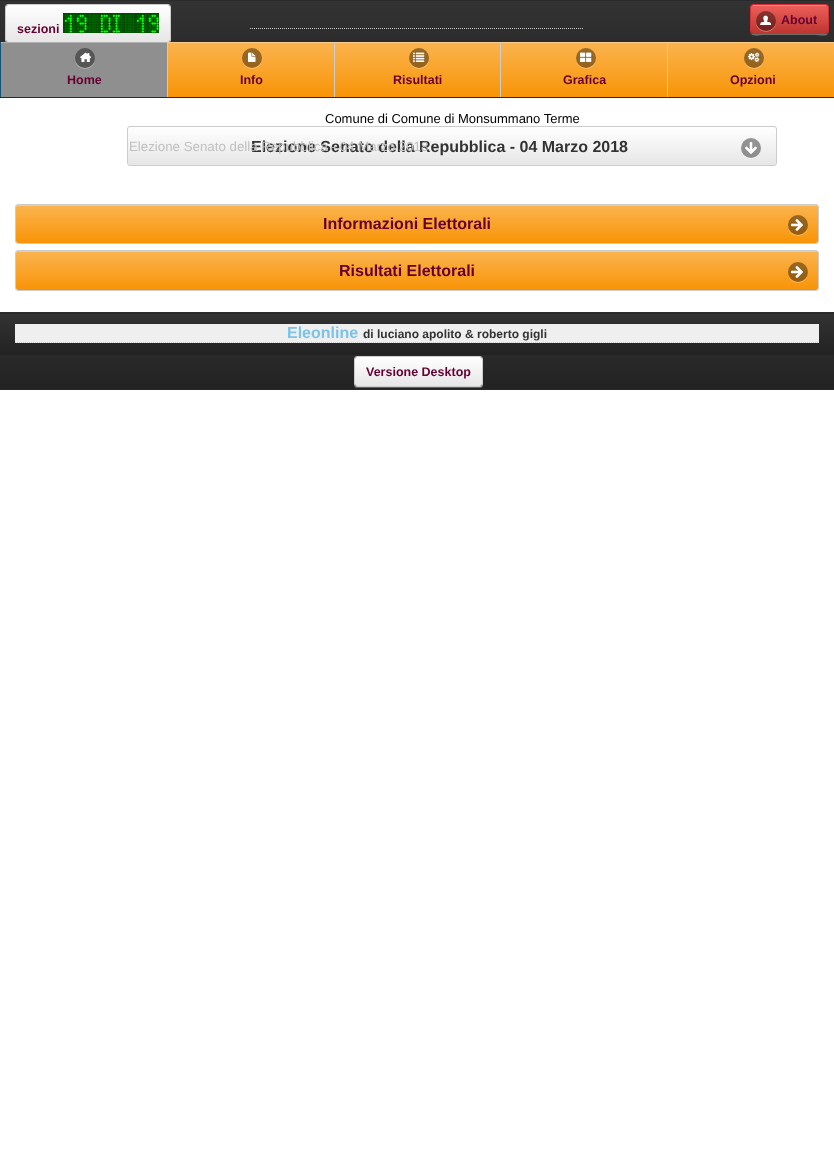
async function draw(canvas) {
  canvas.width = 834
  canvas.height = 1157
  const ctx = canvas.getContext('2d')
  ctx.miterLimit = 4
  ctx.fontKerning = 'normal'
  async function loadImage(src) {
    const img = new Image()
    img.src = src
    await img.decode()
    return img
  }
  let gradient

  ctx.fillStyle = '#fff'
  ctx.fillRect(0, 0, 834, 1157)
  gradient = ctx.createLinearGradient(417, 1, 417, 97)
  gradient.addColorStop(0, '#333')
  gradient.addColorStop(1, '#222')
  ctx.fillStyle = gradient
  ctx.fillRect(0, 1, 834, 41)
  ctx.fillStyle = '#2a2a2a'
  ctx.fillRect(0, 0, 834, 1)
  ctx.fillRect(0, 97, 834, 1)
  ctx.fillStyle = '#6c6c6c'
  ctx.beginPath()
  ctx.moveTo(750, 31)
  ctx.bezierCurveTo(750, 38, 760, 35, 765, 35)
  ctx.lineTo(814, 35)
  ctx.bezierCurveTo(819, 35, 829, 38, 829, 31)
  ctx.bezierCurveTo(829, 33, 828, 34, 826, 34)
  ctx.lineTo(753, 34)
  ctx.bezierCurveTo(751, 34, 750, 33, 750, 31)
  ctx.closePath()
  ctx.fill()
  gradient = ctx.createLinearGradient(790, 5, 790, 33)
  gradient.addColorStop(0, '#ee5f5b')
  gradient.addColorStop(1, '#bd362f')
  ctx.fillStyle = gradient
  ctx.beginPath()
  ctx.roundRect(751, 5, 77, 28, 2)
  ctx.fill()
  ctx.beginPath()
  ctx.roundRect(750.5, 4.5, 78, 29, 2.5)
  ctx.strokeStyle = '#d82c35'
  ctx.stroke()
  ctx.fillStyle = '#f28e8c'
  ctx.fillRect(753, 5, 73, 1)
  ctx.fillStyle = '#ffffff66'
  ctx.beginPath()
  ctx.moveTo(756, 21.5)
  ctx.bezierCurveTo(755.5, 35, 776.5, 35, 776, 21.5)
  ctx.bezierCurveTo(775.5, 34, 756.5, 34, 756, 21.5)
  ctx.closePath()
  ctx.fill()
  ctx.fillStyle = '#00000066'
  ctx.beginPath()
  ctx.arc(766, 21, 10, 0, 2 * Math.PI)
  ctx.fill()
  ctx.drawImage(await loadImage('image0.png'), 760, 15, 12, 10)
  ctx.font = 'bold 12.5px Liberation Sans'
  ctx.fillStyle = '#603'
  ctx.fillText('About', 781, 24)
  gradient = ctx.createLinearGradient(88, 5, 88, 42)
  gradient.addColorStop(0, '#fff')
  gradient.addColorStop(1, '#e6e6e6')
  ctx.fillStyle = gradient
  ctx.beginPath()
  ctx.roundRect(6, 5, 164, 37, 2)
  ctx.fill()
  ctx.beginPath()
  ctx.roundRect(5.5, 4.5, 165, 38, 2.5)
  ctx.strokeStyle = '#ccc'
  ctx.stroke()
  ctx.fillStyle = '#603'
  ctx.fillText('sezioni', 17, 33)
  ctx.drawImage(await loadImage('image1.png'), 63, 13, 96, 20)
  ctx.beginPath()
  ctx.moveTo(250, 28.5)
  ctx.lineTo(584, 28.5)
  ctx.setLineDash([1, 1])
  ctx.stroke()
  ctx.fillStyle = '#8f8f8f'
  ctx.fillRect(1, 43, 166, 54)
  ctx.fillStyle = '#155678'
  ctx.fillRect(0, 42, 1, 55)
  ctx.fillStyle = '#b1b1b1'
  ctx.fillRect(1, 42, 167, 1)
  ctx.fillStyle = '#bcbcbc'
  ctx.beginPath()
  ctx.moveTo(95, 58.5)
  ctx.bezierCurveTo(94.5, 71, 75.5, 71, 75, 58.5)
  ctx.bezierCurveTo(74.5, 72, 95.5, 72, 95, 58.5)
  ctx.closePath()
  ctx.fill()
  ctx.fillStyle = '#00000066'
  ctx.beginPath()
  ctx.arc(85, 58, 10, 0, 2 * Math.PI)
  ctx.fill()
  ctx.drawImage(await loadImage('image2.png'), 80, 52, 12, 10)
  ctx.fillStyle = '#603'
  ctx.fillText('Home', 67, 84)
  gradient = ctx.createLinearGradient(252, 42, 252, 97)
  gradient.addColorStop(0, '#fbb450')
  gradient.addColorStop(1, '#f89406')
  ctx.fillStyle = gradient
  ctx.fillRect(168, 43, 166, 54)
  ctx.fillStyle = '#ccc'
  ctx.fillRect(167, 42, 1, 55)
  ctx.fillStyle = '#fccb84'
  ctx.fillRect(168, 42, 666, 1)
  ctx.fillStyle = '#ffffff66'
  ctx.beginPath()
  ctx.moveTo(262, 58.5)
  ctx.bezierCurveTo(261.5, 71, 242.5, 71, 242, 58.5)
  ctx.bezierCurveTo(241.5, 72, 262.5, 72, 262, 58.5)
  ctx.closePath()
  ctx.fill()
  ctx.fillStyle = '#00000066'
  ctx.beginPath()
  ctx.arc(252, 58, 10, 0, 2 * Math.PI)
  ctx.fill()
  ctx.drawImage(await loadImage('image3.png'), 248, 52, 8, 10)
  ctx.fillStyle = '#603'
  ctx.fillText('Info', 240, 84)
  gradient = ctx.createLinearGradient(418, 42, 418, 97)
  gradient.addColorStop(0, '#fbb450')
  gradient.addColorStop(1, '#f89406')
  ctx.fillStyle = gradient
  ctx.fillRect(335, 43, 165, 54)
  ctx.fillStyle = '#ccc'
  ctx.fillRect(334, 42, 1, 55)
  ctx.fillStyle = '#ffffff66'
  ctx.beginPath()
  ctx.moveTo(429, 58.5)
  ctx.bezierCurveTo(428.5, 71, 409.5, 71, 409, 58.5)
  ctx.bezierCurveTo(408.5, 72, 429.5, 72, 429, 58.5)
  ctx.closePath()
  ctx.fill()
  ctx.fillStyle = '#00000066'
  ctx.beginPath()
  ctx.arc(419, 58, 10, 0, 2 * Math.PI)
  ctx.fill()
  ctx.drawImage(await loadImage('image4.png'), 413, 52, 12, 10)
  ctx.fillStyle = '#603'
  ctx.fillText('Risultati', 393, 84)
  gradient = ctx.createLinearGradient(585, 42, 585, 97)
  gradient.addColorStop(0, '#fbb450')
  gradient.addColorStop(1, '#f89406')
  ctx.fillStyle = gradient
  ctx.fillRect(501, 43, 166, 54)
  ctx.fillStyle = '#ccc'
  ctx.fillRect(500, 42, 1, 55)
  ctx.fillStyle = '#ffffff66'
  ctx.beginPath()
  ctx.moveTo(576, 58.5)
  ctx.bezierCurveTo(575.5, 72, 596.5, 72, 596, 58.5)
  ctx.bezierCurveTo(595.5, 71, 576.5, 71, 576, 58.5)
  ctx.closePath()
  ctx.fill()
  ctx.fillStyle = '#00000066'
  ctx.beginPath()
  ctx.arc(586, 58, 10, 0, 2 * Math.PI)
  ctx.fill()
  ctx.drawImage(await loadImage('image5.png'), 580, 52, 12, 10)
  ctx.fillStyle = '#603'
  ctx.fillText('Grafica', 563, 84)
  gradient = ctx.createLinearGradient(753, 42, 753, 97)
  gradient.addColorStop(0, '#fbb450')
  gradient.addColorStop(1, '#f89406')
  ctx.fillStyle = gradient
  ctx.fillRect(668, 43, 166, 54)
  ctx.fillStyle = '#ccc'
  ctx.fillRect(667, 42, 1, 55)
  ctx.fillStyle = '#ffffff66'
  ctx.beginPath()
  ctx.moveTo(744, 58.5)
  ctx.bezierCurveTo(743.5, 72, 764.5, 72, 764, 58.5)
  ctx.bezierCurveTo(763.5, 71, 744.5, 71, 744, 58.5)
  ctx.closePath()
  ctx.fill()
  ctx.fillStyle = '#00000066'
  ctx.beginPath()
  ctx.arc(754, 58, 10, 0, 2 * Math.PI)
  ctx.fill()
  ctx.drawImage(await loadImage('image6.png'), 748, 52, 12, 10)
  ctx.fillStyle = '#603'
  ctx.fillText('Opzioni', 730, 84)
  ctx.font = '13px Liberation Sans'
  ctx.fillStyle = '#000'
  ctx.fillText('Comune di Comune di Monsummano Terme', 325, 123)
  gradient = ctx.createLinearGradient(452, 127, 452, 165)
  gradient.addColorStop(0, '#fff')
  gradient.addColorStop(1, '#e6e6e6')
  ctx.fillStyle = gradient
  ctx.beginPath()
  ctx.roundRect(128, 127, 648, 38, 2)
  ctx.fill()
  ctx.beginPath()
  ctx.roundRect(127.5, 126.5, 649, 39, 2.5)
  ctx.setLineDash([])
  ctx.stroke()
  ctx.font = 'bold 16px Liberation Sans'
  ctx.fillStyle = '#333'
  ctx.fillText('Elezione Senato della Repubblica - 04 Marzo 2018', 251, 152)
  ctx.fillStyle = '#ffffff66'
  ctx.beginPath()
  ctx.moveTo(741, 148.5)
  ctx.bezierCurveTo(740.5, 162, 761.5, 162, 761, 148.5)
  ctx.bezierCurveTo(760.5, 161, 741.5, 161, 741, 148.5)
  ctx.closePath()
  ctx.fill()
  ctx.fillStyle = '#00000066'
  ctx.beginPath()
  ctx.arc(751, 148, 10, 0, 2 * Math.PI)
  ctx.fill()
  ctx.drawImage(await loadImage('image7.png'), 745, 142, 12, 12)
  ctx.font = '13.3px Liberation Sans'
  ctx.fillStyle = '#c1c1c1'
  ctx.fillText('Elezione Senato della Repubblica - 04 Marzo 2018', 129, 151)
  gradient = ctx.createLinearGradient(417, 205, 417, 243)
  gradient.addColorStop(0, '#fbb450')
  gradient.addColorStop(1, '#f89406')
  ctx.fillStyle = gradient
  ctx.beginPath()
  ctx.roundRect(16, 205, 802, 38, 2)
  ctx.fill()
  ctx.beginPath()
  ctx.roundRect(15.5, 204.5, 803, 39, 2.5)
  ctx.stroke()
  ctx.fillStyle = '#fccb84'
  ctx.fillRect(18, 205, 798, 1)
  ctx.font = 'bold 16px Liberation Sans'
  ctx.fillStyle = '#603'
  ctx.fillText('Informazioni Elettorali', 323, 229)
  ctx.fillStyle = '#ffffff66'
  ctx.beginPath()
  ctx.moveTo(788, 225.5)
  ctx.bezierCurveTo(787.5, 239, 808.5, 239, 808, 225.5)
  ctx.bezierCurveTo(807.5, 238, 788.5, 238, 788, 225.5)
  ctx.closePath()
  ctx.fill()
  ctx.fillStyle = '#00000066'
  ctx.beginPath()
  ctx.arc(798, 225, 10, 0, 2 * Math.PI)
  ctx.fill()
  ctx.drawImage(await loadImage('image8.png'), 791, 219, 12, 12)
  gradient = ctx.createLinearGradient(417, 251, 417, 290)
  gradient.addColorStop(0, '#fbb450')
  gradient.addColorStop(1, '#f89406')
  ctx.fillStyle = gradient
  ctx.beginPath()
  ctx.roundRect(16, 251, 802, 39, 2)
  ctx.fill()
  ctx.beginPath()
  ctx.roundRect(15.5, 250.5, 803, 40, 2.5)
  ctx.stroke()
  ctx.fillStyle = '#fccb84'
  ctx.fillRect(18, 251, 798, 1)
  ctx.fillStyle = '#603'
  ctx.fillText('Risultati Elettorali', 339, 276)
  ctx.fillStyle = '#ffffff66'
  ctx.beginPath()
  ctx.moveTo(788, 272.5)
  ctx.bezierCurveTo(787.5, 286, 808.5, 286, 808, 272.5)
  ctx.bezierCurveTo(807.5, 285, 788.5, 285, 788, 272.5)
  ctx.closePath()
  ctx.fill()
  ctx.fillStyle = '#00000066'
  ctx.beginPath()
  ctx.arc(798, 272, 10, 0, 2 * Math.PI)
  ctx.fill()
  ctx.drawImage(await loadImage('image9.png'), 791, 266, 12, 12)
  gradient = ctx.createLinearGradient(417, 313, 417, 389)
  gradient.addColorStop(0, '#333')
  gradient.addColorStop(1, '#222')
  ctx.fillStyle = gradient
  ctx.fillRect(0, 355, 834, 34)
  ctx.fillStyle = '#2a2a2a'
  ctx.fillRect(0, 312, 834, 2)
  ctx.fillRect(0, 389, 834, 1)
  gradient = ctx.createLinearGradient(417, 314, 417, 355)
  gradient.addColorStop(0, '#333')
  gradient.addColorStop(1, '#222')
  ctx.fillStyle = gradient
  ctx.fillRect(0, 314, 834, 41)
  ctx.fillStyle = '#efefef'
  ctx.fillRect(15, 324, 804, 19)
  ctx.beginPath()
  ctx.moveTo(15, 342.5)
  ctx.lineTo(819, 342.5)
  ctx.setLineDash([1, 1])
  ctx.stroke()
  ctx.fillStyle = '#7cc4e7'
  ctx.fillText('Eleonline', 287, 338)
  ctx.font = 'bold 12px Liberation Sans'
  ctx.fillStyle = '#333'
  ctx.fillText('di luciano apolito & roberto gigli', 363, 338)
  ctx.fillStyle = '#646464'
  ctx.beginPath()
  ctx.moveTo(354, 384)
  ctx.lineTo(354, 385)
  ctx.bezierCurveTo(354, 387, 355, 388, 357, 388)
  ctx.lineTo(480, 388)
  ctx.bezierCurveTo(482, 388, 483, 387, 483, 385)
  ctx.lineTo(483, 384)
  ctx.lineTo(482, 386)
  ctx.lineTo(480, 387)
  ctx.lineTo(357, 387)
  ctx.bezierCurveTo(355, 387, 354, 386, 354, 384)
  ctx.closePath()
  ctx.fill()
  gradient = ctx.createLinearGradient(419, 357, 419, 386)
  gradient.addColorStop(0, '#fff')
  gradient.addColorStop(1, '#e6e6e6')
  ctx.fillStyle = gradient
  ctx.beginPath()
  ctx.roundRect(355, 357, 127, 29, 2)
  ctx.fill()
  ctx.beginPath()
  ctx.roundRect(354.5, 356.5, 128, 30, 2.5)
  ctx.setLineDash([])
  ctx.stroke()
  ctx.font = 'bold 12.5px Liberation Sans'
  ctx.fillStyle = '#603'
  ctx.fillText('Versione Desktop', 366, 376)
}

draw(document.querySelector('canvas'))
